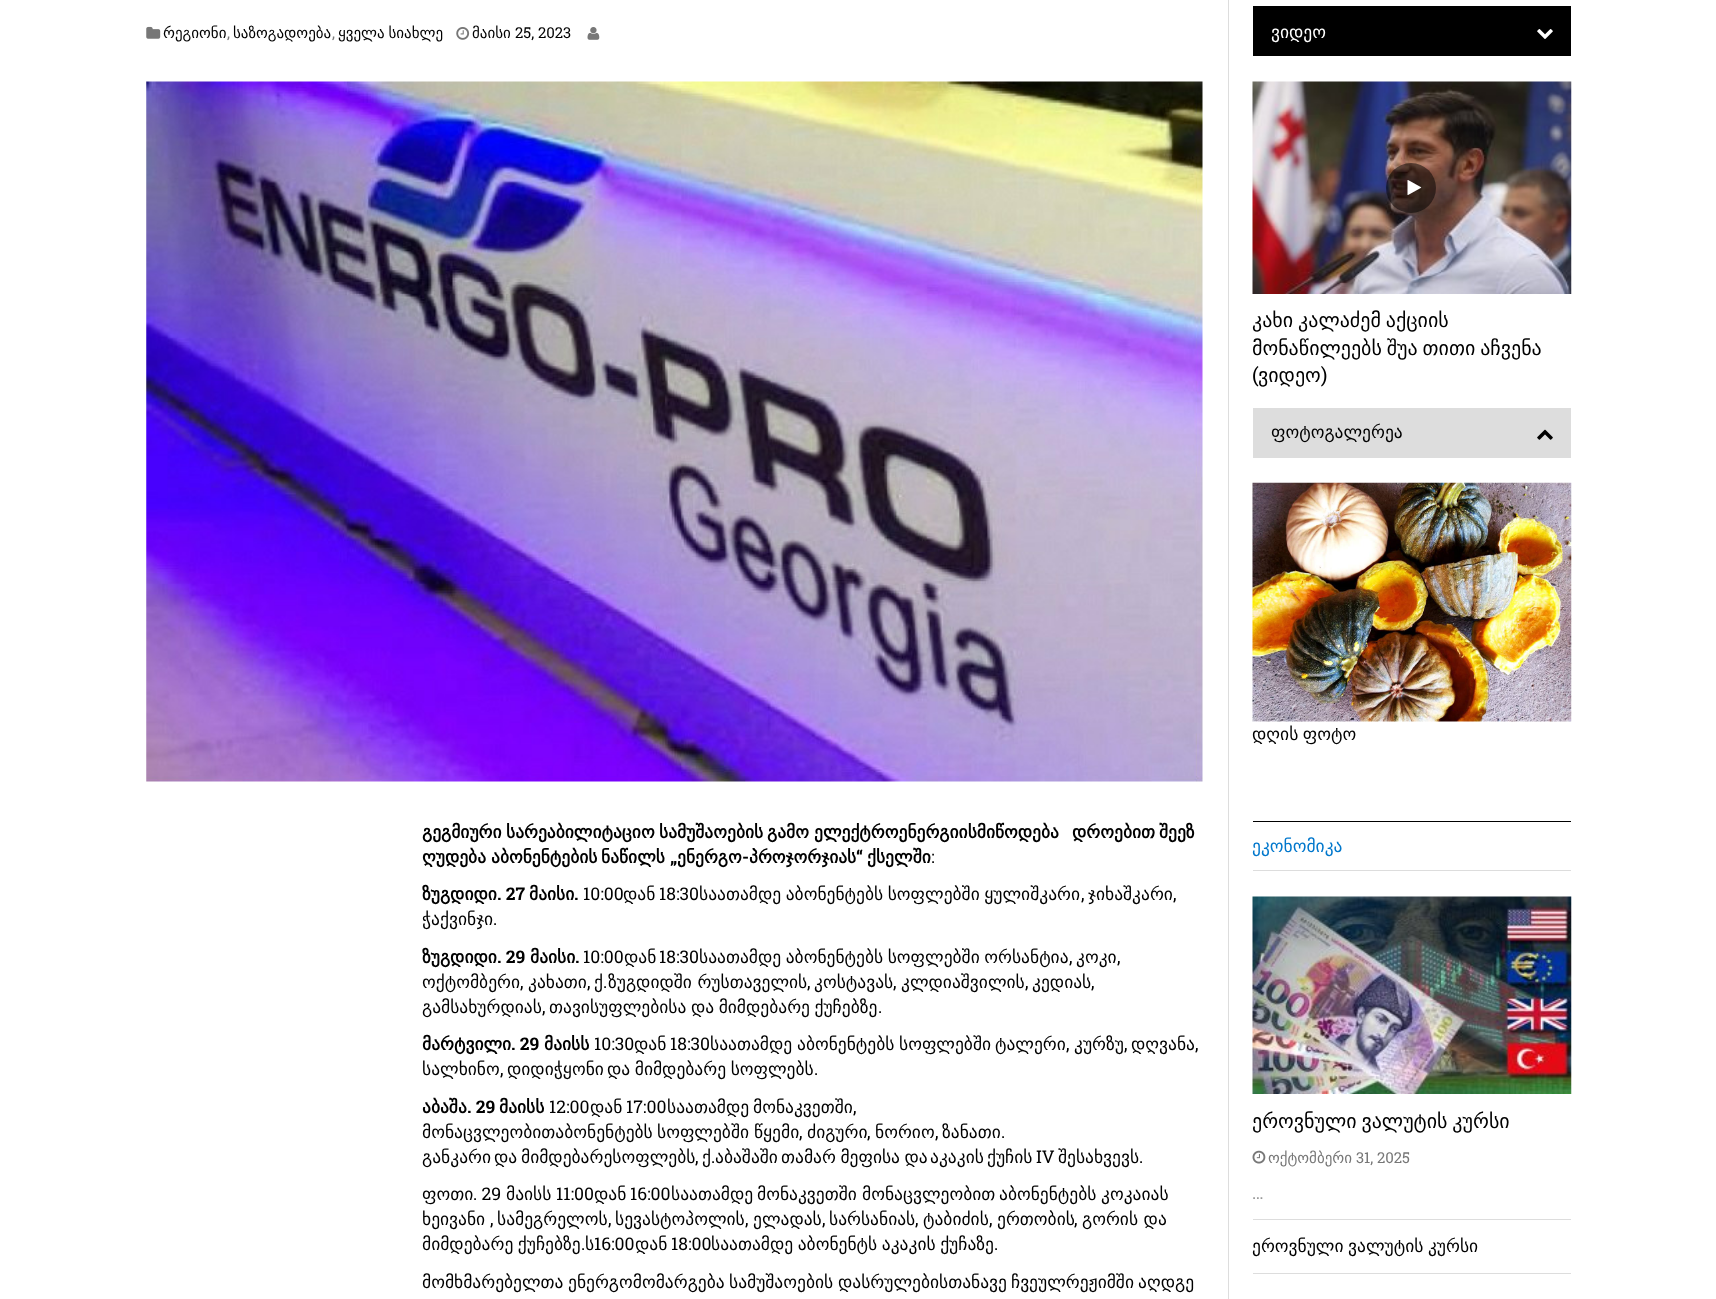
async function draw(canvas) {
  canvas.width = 1716
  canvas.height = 1299
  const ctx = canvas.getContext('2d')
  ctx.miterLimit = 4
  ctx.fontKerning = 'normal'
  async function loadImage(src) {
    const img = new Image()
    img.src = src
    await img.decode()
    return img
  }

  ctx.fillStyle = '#fff'
  ctx.fillRect(0, 0, 1716, 1299)
  ctx.fillStyle = '#ddd'
  ctx.fillRect(1228, 0, 1, 1299)
  ctx.drawImage(await loadImage('image0.png'), 146, 26, 15, 13)
  ctx.font = '15px DejaVu Sans'
  ctx.fillStyle = '#000'
  ctx.fillText('რეგიონი', 163, 38)
  ctx.font = '15px Roboto Slab'
  ctx.fillStyle = '#777'
  ctx.fillText(',', 227, 38)
  ctx.font = '15px DejaVu Sans'
  ctx.fillStyle = '#000'
  ctx.fillText('საზოგადოება', 233, 38)
  ctx.font = '15px Roboto Slab'
  ctx.fillStyle = '#777'
  ctx.fillText(',', 332, 38)
  ctx.wordSpacing = '-1px'
  ctx.font = '15px DejaVu Sans'
  ctx.fillStyle = '#000'
  ctx.fillText('ყველა სიახლე', 338, 38)
  ctx.drawImage(await loadImage('image1.png'), 456, 27, 14, 13)
  ctx.wordSpacing = '0px'
  ctx.fillText('მაისი', 472, 38)
  ctx.font = '15px Roboto Slab'
  ctx.fillText('25, 2023', 515, 38)
  ctx.drawImage(await loadImage('image2.png'), 587, 27, 13, 13)
  ctx.drawImage(await loadImage('image3.png'), 146, 81, 1057, 701)
  ctx.font = 'bold 17.5px DejaVu Sans'
  ctx.fillText('გეგმიური', 422, 838)
  ctx.fillText('სარეაბილიტაციო', 506, 838)
  ctx.fillText('სამუშაოების', 659, 838)
  ctx.fillText('გამო', 767, 838)
  ctx.fillText('ელექტროენერგიისმიწოდება', 814, 838)
  ctx.fillText('დროებით', 1072, 838)
  ctx.fillText('შეეზ', 1159, 838)
  ctx.fillText('ღუდება', 422, 863)
  ctx.fillText('აბონენტების', 491, 863)
  ctx.fillText('ნაწილს', 601, 863)
  ctx.fillText('ენერგო', 677, 863)
  ctx.fillText('პროჯორჯიას', 749, 863)
  ctx.font = 'bold 17.5px Roboto Slab'
  ctx.fillText('“', 856, 863)
  ctx.font = 'bold 17.5px DejaVu Sans'
  ctx.fillText('ქსელში', 867, 863)
  ctx.font = 'bold 17.5px Roboto Slab'
  ctx.fillText('-', 742, 863)
  ctx.font = '17.5px Roboto Slab'
  ctx.fillText(':', 931, 863)
  ctx.font = 'bold 17.5px Roboto Slab'
  ctx.fillText('„', 670, 863)
  ctx.font = 'bold 17.5px DejaVu Sans'
  ctx.fillText('ზუგდიდი', 422, 900)
  ctx.font = 'bold 17.5px Roboto Slab'
  ctx.fillText('. 27', 497, 900)
  ctx.font = 'bold 17.5px DejaVu Sans'
  ctx.fillText('მაისი', 529, 900)
  ctx.font = 'bold 17.5px Roboto Slab'
  ctx.fillText('.', 574, 900)
  ctx.font = '17.5px Roboto Slab'
  ctx.fillText('10:00', 583, 900)
  ctx.font = '17.5px DejaVu Sans'
  ctx.fillText('დან', 623, 900)
  ctx.font = '17.5px Roboto Slab'
  ctx.fillText('18:30', 659, 900)
  ctx.wordSpacing = '-1px'
  ctx.font = '17.5px DejaVu Sans'
  ctx.fillText('საათამდე აბონენტებს სოფლებში ყულიშკარი', 699, 900)
  ctx.wordSpacing = '0px'
  ctx.font = '17.5px Roboto Slab'
  ctx.fillText(',', 1081, 900)
  ctx.font = '17.5px DejaVu Sans'
  ctx.fillText('ჯიხაშკარი', 1088, 900)
  ctx.font = '17.5px Roboto Slab'
  ctx.fillText(',', 1173, 900)
  ctx.font = '17.5px DejaVu Sans'
  ctx.fillText('ჭაქვინჯი', 422, 925)
  ctx.font = '17.5px Roboto Slab'
  ctx.fillText('.', 493, 925)
  ctx.font = 'bold 17.5px DejaVu Sans'
  ctx.fillText('ზუგდიდი', 422, 963)
  ctx.font = 'bold 17.5px Roboto Slab'
  ctx.fillText('. 29', 497, 963)
  ctx.font = 'bold 17.5px DejaVu Sans'
  ctx.fillText('მაისი', 530, 963)
  ctx.font = 'bold 17.5px Roboto Slab'
  ctx.fillText('.', 575, 963)
  ctx.font = '17.5px Roboto Slab'
  ctx.fillText('10:00', 583, 963)
  ctx.font = '17.5px DejaVu Sans'
  ctx.fillText('დან', 624, 963)
  ctx.font = '17.5px Roboto Slab'
  ctx.fillText('18:30', 659, 963)
  ctx.wordSpacing = '-1px'
  ctx.font = '17.5px DejaVu Sans'
  ctx.fillText('საათამდე აბონენტებს სოფლებში ორსანტია', 699, 963)
  ctx.wordSpacing = '0px'
  ctx.font = '17.5px Roboto Slab'
  ctx.fillText(',', 1069, 963)
  ctx.font = '17.5px DejaVu Sans'
  ctx.fillText('კოკი', 1076, 963)
  ctx.font = '17.5px Roboto Slab'
  ctx.fillText(',', 1117, 963)
  ctx.font = '17.5px DejaVu Sans'
  ctx.fillText('ოქტომბერი', 422, 988)
  ctx.font = '17.5px Roboto Slab'
  ctx.fillText(',', 520, 988)
  ctx.font = '17.5px DejaVu Sans'
  ctx.fillText('კახათი', 528, 988)
  ctx.font = '17.5px Roboto Slab'
  ctx.fillText(',', 587, 988)
  ctx.font = '17.5px DejaVu Sans'
  ctx.fillText('ქ', 594, 988)
  ctx.font = '17.5px Roboto Slab'
  ctx.fillText('.', 603, 988)
  ctx.font = '17.5px DejaVu Sans'
  ctx.fillText('ზუგდიდში რუსთაველის', 608, 988)
  ctx.font = '17.5px Roboto Slab'
  ctx.fillText(',', 807, 988)
  ctx.font = '17.5px DejaVu Sans'
  ctx.fillText('კოსტავას', 814, 988)
  ctx.font = '17.5px Roboto Slab'
  ctx.fillText(',', 893, 988)
  ctx.font = '17.5px DejaVu Sans'
  ctx.fillText('კლდიაშვილის', 901, 988)
  ctx.font = '17.5px Roboto Slab'
  ctx.fillText(',', 1025, 988)
  ctx.font = '17.5px DejaVu Sans'
  ctx.fillText('კედიას', 1032, 988)
  ctx.font = '17.5px Roboto Slab'
  ctx.fillText(',', 1091, 988)
  ctx.font = '17.5px DejaVu Sans'
  ctx.fillText('გამსახურდიას', 422, 1013)
  ctx.font = '17.5px Roboto Slab'
  ctx.fillText(',', 542, 1013)
  ctx.wordSpacing = '-1px'
  ctx.font = '17.5px DejaVu Sans'
  ctx.fillText('თავისუფლებისა და მიმდებარე ქუჩებზე', 549, 1013)
  ctx.wordSpacing = '0px'
  ctx.font = '17.5px Roboto Slab'
  ctx.fillText('.', 878, 1013)
  ctx.font = 'bold 17.5px DejaVu Sans'
  ctx.fillText('მარტვილი', 422, 1050)
  ctx.font = 'bold 17.5px Roboto Slab'
  ctx.fillText('. 29', 511, 1050)
  ctx.font = 'bold 17.5px DejaVu Sans'
  ctx.fillText('მაისს', 544, 1050)
  ctx.font = '17.5px Roboto Slab'
  ctx.fillText('10:30', 594, 1050)
  ctx.font = '17.5px DejaVu Sans'
  ctx.fillText('დან', 634, 1050)
  ctx.font = '17.5px Roboto Slab'
  ctx.fillText('18:30', 670, 1050)
  ctx.font = '17.5px DejaVu Sans'
  ctx.fillText('საათამდე', 710, 1050)
  ctx.fillText('აბონენტებს', 797, 1050)
  ctx.fillText('სოფლებში', 899, 1050)
  ctx.fillText('ტალერი', 995, 1050)
  ctx.font = '17.5px Roboto Slab'
  ctx.fillText(',', 1066, 1050)
  ctx.font = '17.5px DejaVu Sans'
  ctx.fillText('კურზუ', 1074, 1050)
  ctx.font = '17.5px Roboto Slab'
  ctx.fillText(',', 1124, 1050)
  ctx.font = '17.5px DejaVu Sans'
  ctx.fillText('დღვანა', 1131, 1050)
  ctx.font = '17.5px Roboto Slab'
  ctx.fillText(',', 1195, 1050)
  ctx.font = '17.5px DejaVu Sans'
  ctx.fillText('სალხინო', 422, 1075)
  ctx.font = '17.5px Roboto Slab'
  ctx.fillText(',', 500, 1075)
  ctx.font = '17.5px DejaVu Sans'
  ctx.fillText('დიდიჭყონი', 507, 1075)
  ctx.wordSpacing = '-1px'
  ctx.fillText('და მიმდებარე სოფლებს', 607, 1075)
  ctx.wordSpacing = '0px'
  ctx.font = '17.5px Roboto Slab'
  ctx.fillText('.', 814, 1075)
  ctx.font = 'bold 17.5px DejaVu Sans'
  ctx.fillText('აბაშა', 422, 1113)
  ctx.font = 'bold 17.5px Roboto Slab'
  ctx.fillText('. 29', 467, 1113)
  ctx.font = 'bold 17.5px DejaVu Sans'
  ctx.fillText('მაისს', 499, 1113)
  ctx.font = '17.5px Roboto Slab'
  ctx.fillText('12:00', 549, 1113)
  ctx.font = '17.5px DejaVu Sans'
  ctx.fillText('დან', 590, 1113)
  ctx.font = '17.5px Roboto Slab'
  ctx.fillText('17:00', 626, 1113)
  ctx.font = '17.5px DejaVu Sans'
  ctx.fillText('საათამდე', 667, 1113)
  ctx.fillText('მონაკვეთში', 753, 1113)
  ctx.font = '17.5px Roboto Slab'
  ctx.fillText(',', 853, 1113)
  ctx.font = '17.5px DejaVu Sans'
  ctx.fillText('მონაცვლეობითაბონენტებს', 422, 1138)
  ctx.fillText('სოფლებში', 657, 1138)
  ctx.fillText('წყემი', 754, 1138)
  ctx.font = '17.5px Roboto Slab'
  ctx.fillText(',', 799, 1138)
  ctx.font = '17.5px DejaVu Sans'
  ctx.fillText('ძიგური', 807, 1138)
  ctx.font = '17.5px Roboto Slab'
  ctx.fillText(',', 867, 1138)
  ctx.font = '17.5px DejaVu Sans'
  ctx.fillText('ნორიო', 875, 1138)
  ctx.font = '17.5px Roboto Slab'
  ctx.fillText(',', 935, 1138)
  ctx.font = '17.5px DejaVu Sans'
  ctx.fillText('ზანათი', 942, 1138)
  ctx.font = '17.5px Roboto Slab'
  ctx.fillText('.', 1001, 1138)
  ctx.font = '17.5px DejaVu Sans'
  ctx.fillText('განკარი', 422, 1163)
  ctx.fillText('და', 494, 1163)
  ctx.fillText('მიმდებარესოფლებს', 521, 1163)
  ctx.font = '17.5px Roboto Slab'
  ctx.fillText(',', 695, 1163)
  ctx.font = '17.5px DejaVu Sans'
  ctx.fillText('ქ', 702, 1163)
  ctx.font = '17.5px Roboto Slab'
  ctx.fillText('.', 711, 1163)
  ctx.font = '17.5px DejaVu Sans'
  ctx.fillText('აბაშაში', 715, 1163)
  ctx.wordSpacing = '-1px'
  ctx.fillText('თამარ მეფისა და', 781, 1163)
  ctx.wordSpacing = '0px'
  ctx.fillText('აკაკის', 930, 1163)
  ctx.fillText('ქუჩის', 987, 1163)
  ctx.font = '17.5px Roboto Slab'
  ctx.fillText('IV', 1036, 1163)
  ctx.font = '17.5px DejaVu Sans'
  ctx.fillText('შესახვევს', 1058, 1163)
  ctx.font = '17.5px Roboto Slab'
  ctx.fillText('.', 1139, 1163)
  ctx.font = '17.5px DejaVu Sans'
  ctx.fillText('ფოთი', 422, 1200)
  ctx.font = '17.5px Roboto Slab'
  ctx.fillText('. 29', 473, 1200)
  ctx.font = '17.5px DejaVu Sans'
  ctx.fillText('მაისს', 506, 1200)
  ctx.font = '17.5px Roboto Slab'
  ctx.fillText('11:00', 556, 1200)
  ctx.font = '17.5px DejaVu Sans'
  ctx.fillText('დან', 594, 1200)
  ctx.font = '17.5px Roboto Slab'
  ctx.fillText('16:00', 630, 1200)
  ctx.font = '17.5px DejaVu Sans'
  ctx.fillText('საათამდე', 671, 1200)
  ctx.fillText('მონაკვეთში', 757, 1200)
  ctx.fillText('მონაცვლეობით', 862, 1200)
  ctx.fillText('აბონენტებს', 999, 1200)
  ctx.fillText('კოკაიას', 1101, 1200)
  ctx.fillText('ხეივანი', 422, 1225)
  ctx.font = '17.5px Roboto Slab'
  ctx.fillText(',', 490, 1225)
  ctx.font = '17.5px DejaVu Sans'
  ctx.fillText('სამეგრელოს', 497, 1225)
  ctx.font = '17.5px Roboto Slab'
  ctx.fillText(',', 608, 1225)
  ctx.font = '17.5px DejaVu Sans'
  ctx.fillText('სევასტოპოლის', 615, 1225)
  ctx.font = '17.5px Roboto Slab'
  ctx.fillText(',', 745, 1225)
  ctx.font = '17.5px DejaVu Sans'
  ctx.fillText('ელადას', 753, 1225)
  ctx.font = '17.5px Roboto Slab'
  ctx.fillText(',', 822, 1225)
  ctx.font = '17.5px DejaVu Sans'
  ctx.fillText('სარსანიას', 829, 1225)
  ctx.font = '17.5px Roboto Slab'
  ctx.fillText(',', 915, 1225)
  ctx.font = '17.5px DejaVu Sans'
  ctx.fillText('ტაბიძის', 923, 1225)
  ctx.font = '17.5px Roboto Slab'
  ctx.fillText(',', 989, 1225)
  ctx.font = '17.5px DejaVu Sans'
  ctx.fillText('ერთობის', 997, 1225)
  ctx.font = '17.5px Roboto Slab'
  ctx.fillText(',', 1074, 1225)
  ctx.font = '17.5px DejaVu Sans'
  ctx.fillText('გორის და', 1082, 1225)
  ctx.wordSpacing = '-1px'
  ctx.fillText('მიმდებარე ქუჩებზე', 422, 1250)
  ctx.wordSpacing = '0px'
  ctx.font = '17.5px Roboto Slab'
  ctx.fillText('.', 581, 1250)
  ctx.font = '17.5px DejaVu Sans'
  ctx.fillText('ს', 585, 1250)
  ctx.font = '17.5px Roboto Slab'
  ctx.fillText('16:00', 594, 1250)
  ctx.font = '17.5px DejaVu Sans'
  ctx.fillText('დან', 635, 1250)
  ctx.font = '17.5px Roboto Slab'
  ctx.fillText('18:00', 671, 1250)
  ctx.wordSpacing = '-1px'
  ctx.font = '17.5px DejaVu Sans'
  ctx.fillText('საათამდე აბონენტს აკაკის ქუჩაზე', 711, 1250)
  ctx.wordSpacing = '0px'
  ctx.font = '17.5px Roboto Slab'
  ctx.fillText('.', 994, 1250)
  ctx.font = '17.5px DejaVu Sans'
  ctx.fillText('მომხმარებელთა', 422, 1288)
  ctx.fillText('ენერგომომარგება', 568, 1288)
  ctx.fillText('სამუშაოების', 729, 1288)
  ctx.fillText('დასრულებისთანავე', 838, 1288)
  ctx.fillText('ჩვეულრეჟიმში', 1011, 1288)
  ctx.fillText('აღდგე', 1138, 1288)
  ctx.fillRect(1253, 6, 318, 50)
  ctx.fillStyle = '#fff'
  ctx.fillText('ვიდეო', 1271, 38)
  ctx.drawImage(await loadImage('image4.png'), 1537, 29, 16, 10)
  ctx.drawImage(await loadImage('image5.png'), 1252, 81, 320, 213)
  ctx.fillStyle = '#00000080'
  ctx.beginPath()
  ctx.arc(1411, 188, 25, 0, 2 * Math.PI)
  ctx.fill()
  ctx.drawImage(await loadImage('image6.png'), 1407, 180, 15, 15)
  ctx.wordSpacing = '-1.5px'
  ctx.font = '20px DejaVu Sans'
  ctx.fillStyle = '#000'
  ctx.fillText('კახი კალაძემ აქციის', 1252, 327)
  ctx.fillText('მონაწილეებს შუა თითი აჩვენა', 1252, 355)
  ctx.wordSpacing = '0px'
  ctx.font = '20px Roboto Slab'
  ctx.fillText('(', 1252, 382)
  ctx.font = '20px DejaVu Sans'
  ctx.fillText('ვიდეო', 1258, 382)
  ctx.font = '20px Roboto Slab'
  ctx.fillText(')', 1321, 382)
  ctx.fillStyle = '#ddd'
  ctx.fillRect(1253, 408, 318, 50)
  ctx.font = '17.5px DejaVu Sans'
  ctx.fillStyle = '#000'
  ctx.fillText('ფოტოგალერეა', 1271, 438)
  ctx.drawImage(await loadImage('image7.png'), 1537, 429, 16, 11)
  ctx.drawImage(await loadImage('image8.png'), 1252, 482, 320, 240)
  ctx.wordSpacing = '-1px'
  ctx.fillText('დღის ფოტო', 1252, 740)
  ctx.fillRect(1253, 821, 318, 1)
  ctx.fillStyle = '#ddd'
  ctx.fillRect(1253, 870, 318, 1)
  ctx.wordSpacing = '0px'
  ctx.fillStyle = '#07c'
  ctx.fillText('ეკონომიკა', 1252, 852)
  ctx.drawImage(await loadImage('image9.png'), 1252, 896, 320, 198)
  ctx.wordSpacing = '-1.5px'
  ctx.font = '20px DejaVu Sans'
  ctx.fillStyle = '#000'
  ctx.fillText('ეროვნული ვალუტის კურსი', 1252, 1128)
  ctx.drawImage(await loadImage('image10.png'), 1252, 1150, 14, 14)
  ctx.wordSpacing = '0px'
  ctx.font = '15px DejaVu Sans'
  ctx.fillStyle = '#777'
  ctx.fillText('ოქტომბერი', 1268, 1163)
  ctx.font = '15px Roboto Slab'
  ctx.fillText('31, 2025', 1356, 1163)
  ctx.font = '17.5px Roboto Slab'
  ctx.fillStyle = '#999'
  ctx.fillText('…', 1252, 1199)
  ctx.fillStyle = '#ddd'
  ctx.fillRect(1253, 1219, 318, 1)
  ctx.wordSpacing = '-1px'
  ctx.font = '17.5px DejaVu Sans'
  ctx.fillStyle = '#000'
  ctx.fillText('ეროვნული ვალუტის კურსი', 1252, 1252)
  ctx.fillStyle = '#ddd'
  ctx.fillRect(1253, 1273, 318, 1)
}

draw(document.querySelector('canvas'))
